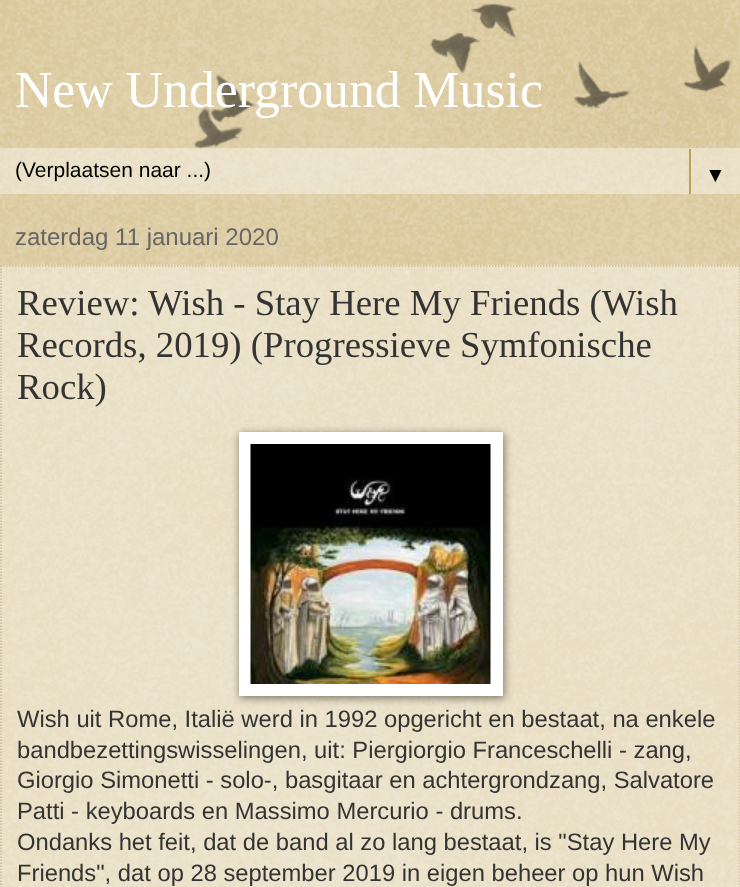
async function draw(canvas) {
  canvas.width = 740
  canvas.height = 887
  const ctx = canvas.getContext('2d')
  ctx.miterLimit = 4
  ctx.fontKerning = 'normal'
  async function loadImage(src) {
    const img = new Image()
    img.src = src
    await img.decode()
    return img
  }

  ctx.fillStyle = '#c0a154'
  ctx.fillRect(0, 0, 740, 887)
  ctx.drawImage(await loadImage('image0.png'), 0, 0, 740, 887)
  ctx.drawImage(await loadImage('image1.png'), 193, 3, 540, 146)
  ctx.font = '51.75px Liberation Serif'
  ctx.fillStyle = '#fff'
  ctx.fillText('New Underground Music', 15, 107)
  ctx.fillStyle = '#ffffff66'
  ctx.fillRect(0, 148, 740, 46)
  ctx.font = '21px Liberation Sans'
  ctx.fillStyle = '#000'
  ctx.fillText('(Verplaatsen naar ...)', 15, 177)
  ctx.fillStyle = '#c0a154'
  ctx.fillRect(689, 149, 2, 45)
  ctx.fillStyle = '#000'
  ctx.fillText('▼', 705, 182)
  ctx.font = '24px Liberation Sans'
  ctx.fillStyle = '#666'
  ctx.fillText('zaterdag 11 januari 2020', 15, 245)
  ctx.fillStyle = '#ffffff66'
  ctx.fillRect(0, 265, 740, 622)
  ctx.beginPath()
  ctx.moveTo(0, 266)
  ctx.lineTo(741, 266)
  ctx.strokeStyle = '#cb9'
  ctx.lineWidth = 1.5
  ctx.setLineDash([1.5, 1.5])
  ctx.stroke()
  ctx.beginPath()
  ctx.moveTo(740, 265.5)
  ctx.lineTo(740, 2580)
  ctx.stroke()
  ctx.beginPath()
  ctx.moveTo(1, 265.5)
  ctx.lineTo(1, 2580)
  ctx.stroke()
  ctx.font = '36.75px Liberation Serif'
  ctx.fillStyle = '#333'
  ctx.fillText('Review: Wish - Stay Here My Friends (Wish', 17, 315)
  ctx.fillText('Records, 2019) (Progressieve Symfonische', 17, 357)
  ctx.fillText('Rock)', 17, 399)
  ctx.fillStyle = '#00000080'
  ctx.filter = 'blur(4px)'
  ctx.beginPath()
  ctx.rect(240, 434, 264, 264)
  ctx.fill()
  ctx.filter = 'none'
  ctx.fillStyle = '#fff'
  ctx.fillRect(239, 432, 264, 264)
  ctx.drawImage(await loadImage('image2.png'), 250, 444, 241, 240)
  ctx.font = '23.75px Liberation Sans'
  ctx.fillStyle = '#333'
  ctx.fillText('Wish uit Rome, Italië werd in 1992 opgericht en bestaat, na enkele', 17, 727)
  ctx.fillText('bandbezettingswisselingen, uit: Piergiorgio Franceschelli - zang,', 17, 758)
  ctx.fillText('Giorgio Simonetti - solo-, basgitaar en achtergrondzang, Salvatore', 17, 788)
  ctx.fillText('Patti - keyboards en Massimo Mercurio - drums.', 17, 819)
  ctx.fillText('Ondanks het feit, dat de band al zo lang bestaat, is "Stay Here My', 17, 850)
  ctx.fillText('Friends", dat op 28 september 2019 in eigen beheer op hun Wish', 17, 881)
}

draw(document.querySelector('canvas'))
